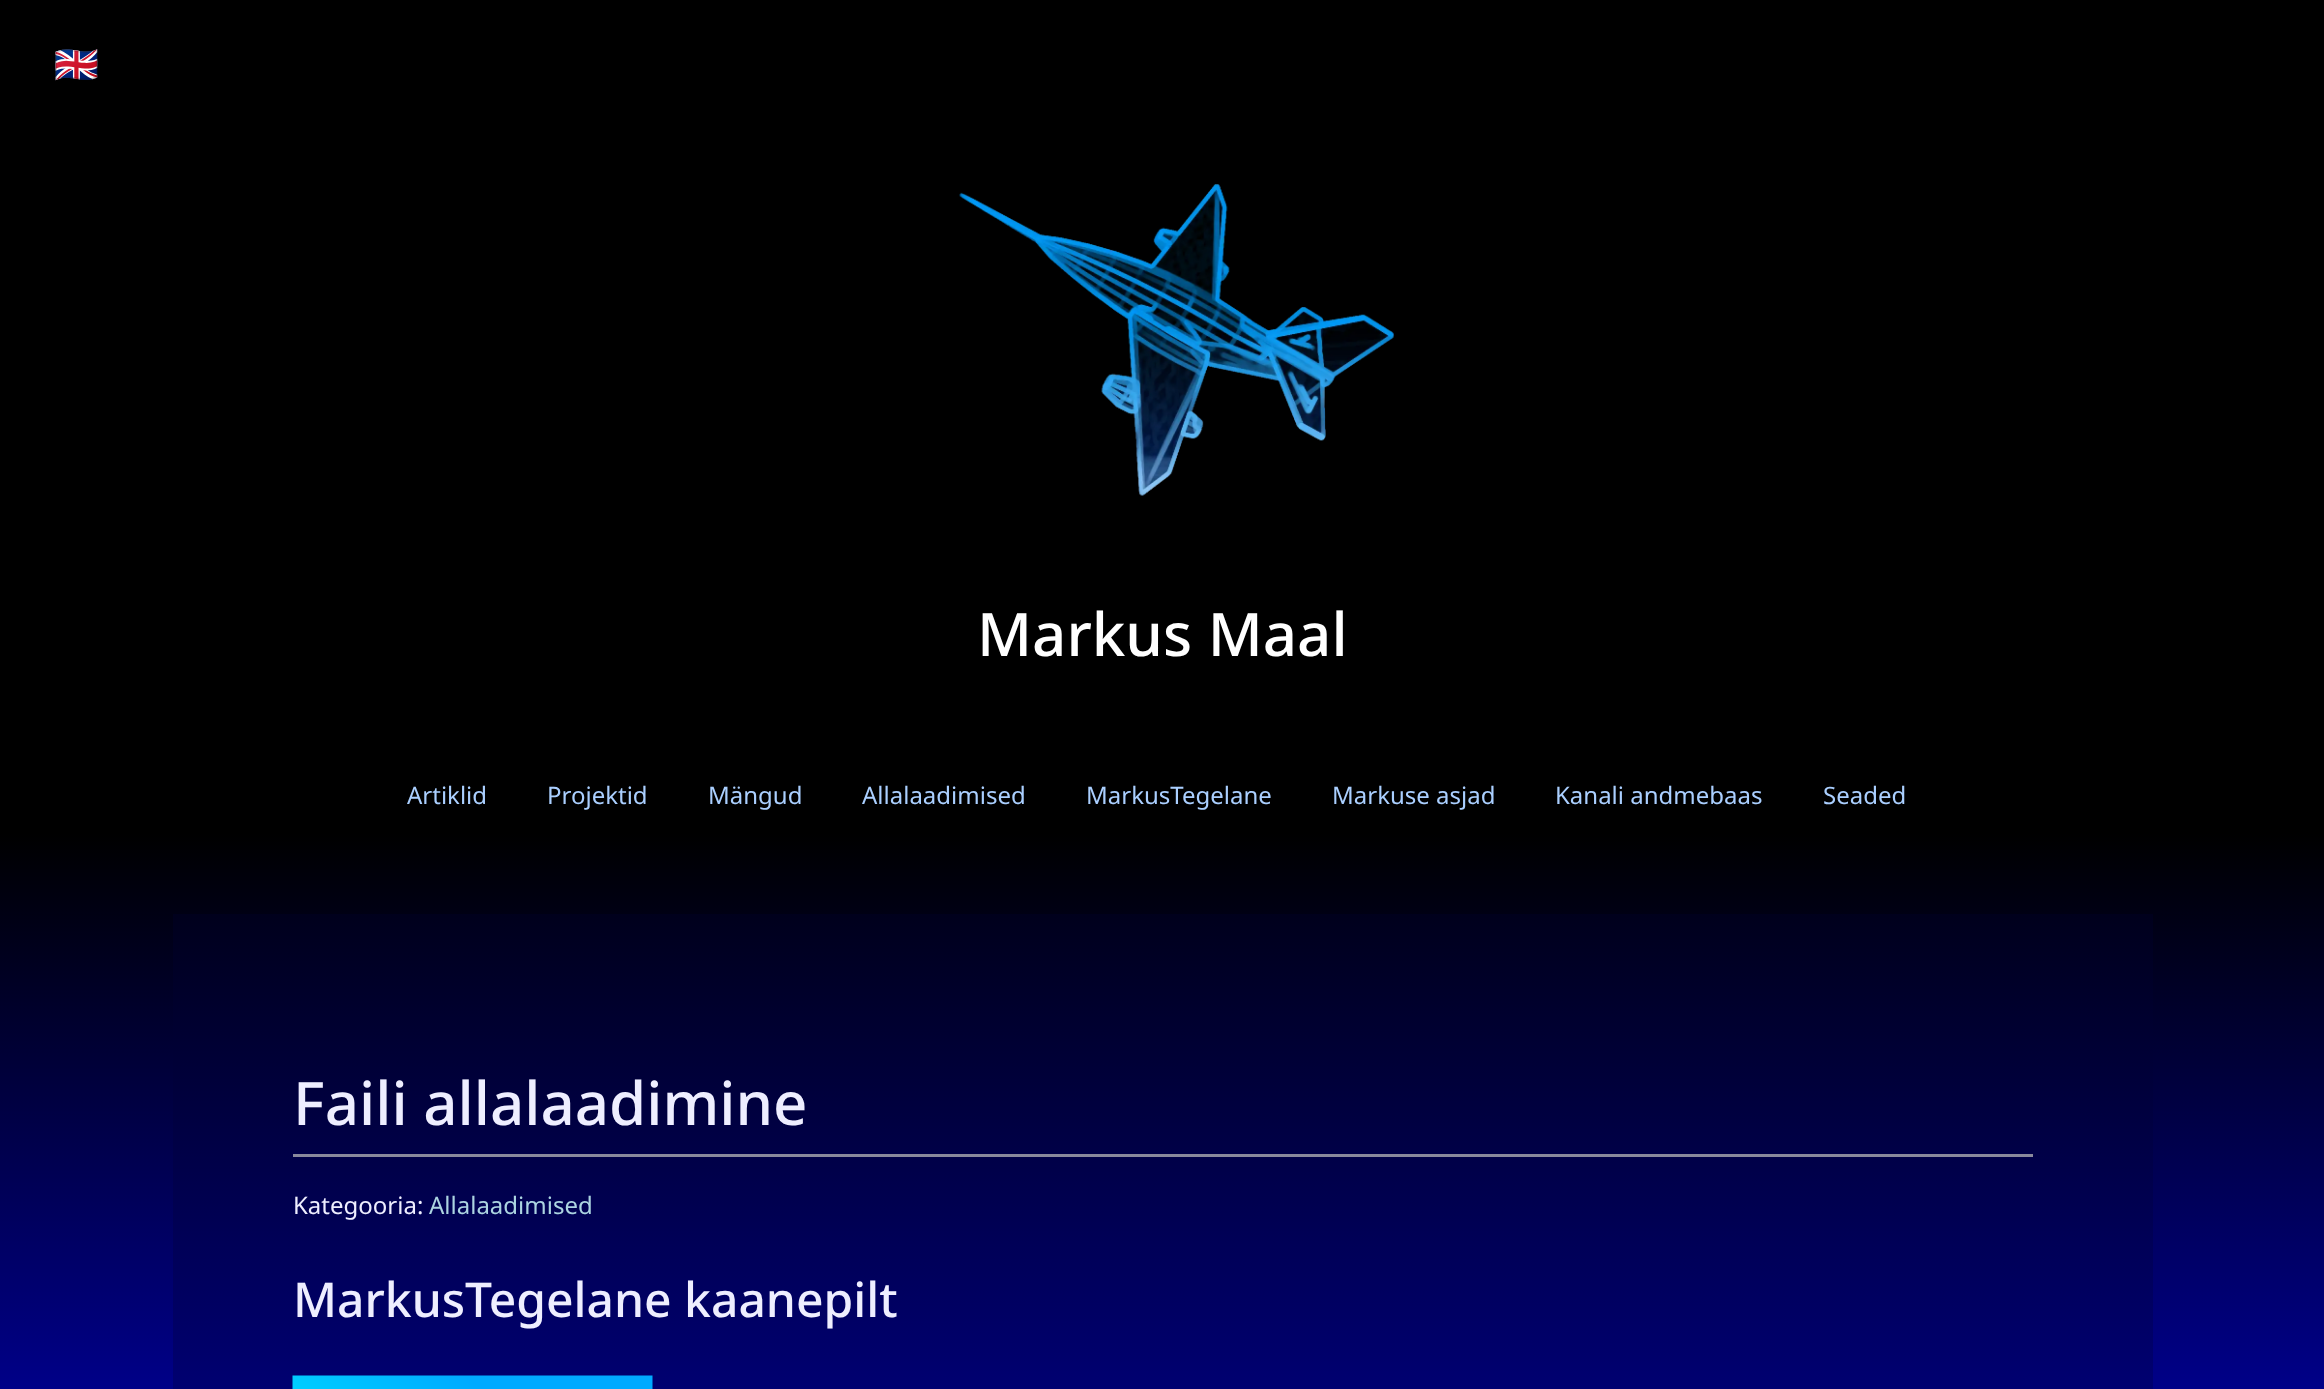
async function draw(canvas) {
  canvas.width = 2324
  canvas.height = 1389
  const ctx = canvas.getContext('2d')
  ctx.miterLimit = 4
  ctx.fontKerning = 'normal'
  async function loadImage(src) {
    const img = new Image()
    img.src = src
    await img.decode()
    return img
  }
  let gradient

  ctx.fillStyle = '#fff'
  ctx.fillRect(0, 0, 2324, 1389)
  gradient = ctx.createLinearGradient(1163, 0, 1163, 1389)
  gradient.addColorStop(0, '#000')
  gradient.addColorStop(0.6, '#000')
  gradient.addColorStop(1, '#008')
  ctx.fillStyle = gradient
  ctx.fillRect(0, 0, 2324, 1389)
  gradient = ctx.createLinearGradient(1163, 0, 1163, 1389)
  gradient.addColorStop(0, '#00000e')
  gradient.addColorStop(0.6, '#00000e')
  gradient.addColorStop(1, '#000071')
  ctx.fillStyle = gradient
  ctx.fillRect(173, 914, 1980, 475)
  ctx.font = '36px Noto Color Emoji'
  ctx.fillStyle = '#808080'
  ctx.fillText('🇬🇧', 54, 77)
  ctx.drawImage(await loadImage('image0.png'), 959, 184, 436, 312)
  ctx.font = '500 60px Noto Sans'
  ctx.fillStyle = '#fff'
  ctx.fillText('Markus Maal', 977, 656)
  ctx.font = '24px Noto Sans'
  ctx.fillStyle = '#aacfff'
  ctx.fillText('Artiklid', 407, 804)
  ctx.fillText('Projektid', 547, 804)
  ctx.fillText('Mängud', 708, 804)
  ctx.fillText('Allalaadimised', 862, 804)
  ctx.fillText('MarkusTegelane', 1086, 804)
  ctx.fillText('Markuse asjad', 1332, 804)
  ctx.fillText('Kanali andmebaas', 1555, 804)
  ctx.fillText('Seaded', 1823, 804)
  ctx.fillStyle = '#89899c'
  ctx.fillRect(293, 1154, 1740, 3)
  ctx.font = '500 60px Noto Sans'
  ctx.fillStyle = '#eef'
  ctx.fillText('Faili allalaadimine', 293, 1125)
  ctx.font = '24px Noto Sans'
  ctx.fillText('Kategooria:', 293, 1214)
  ctx.fillStyle = '#acd4e1'
  ctx.fillText('Allalaadimised', 429, 1214)
  ctx.font = '500 48px Noto Sans'
  ctx.fillStyle = '#eef'
  ctx.fillText('MarkusTegelane kaanepilt', 293, 1317)
  ctx.drawImage(await loadImage('image1.png'), 292, 1375, 361, 14)
}

draw(document.querySelector('canvas'))
